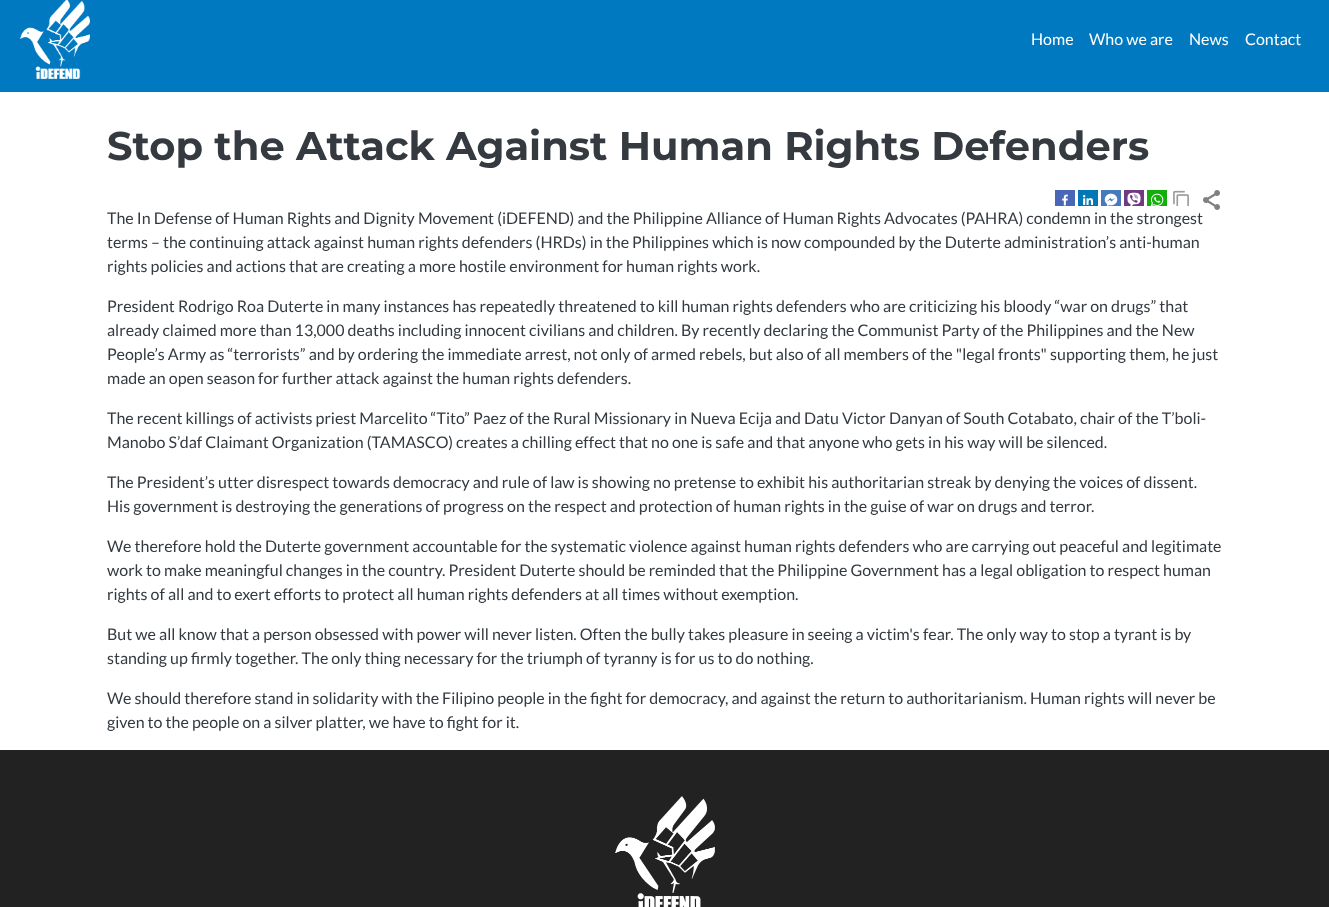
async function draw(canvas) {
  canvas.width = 1329
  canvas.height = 907
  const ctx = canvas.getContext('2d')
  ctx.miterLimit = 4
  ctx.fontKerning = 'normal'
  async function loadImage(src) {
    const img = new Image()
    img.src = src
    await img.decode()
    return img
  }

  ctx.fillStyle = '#fff'
  ctx.fillRect(0, 0, 1329, 907)
  ctx.fillStyle = '#0079c0'
  ctx.fillRect(0, 0, 1329, 92)
  ctx.drawImage(await loadImage('image0.png'), 20, 0, 70, 79)
  ctx.font = '16px Lato'
  ctx.fillStyle = '#fff'
  ctx.fillText('Home', 1031, 45)
  ctx.fillText('Who we are', 1089, 45)
  ctx.fillText('News', 1189, 45)
  ctx.fillText('Contact', 1245, 45)
  ctx.font = 'bold 40px Montserrat'
  ctx.fillStyle = '#343a40'
  ctx.fillText('Stop the Attack Against Human Rights Defenders', 107, 160)
  ctx.drawImage(await loadImage('image1.png'), 1055, 190, 20, 16)
  ctx.drawImage(await loadImage('image2.png'), 1078, 190, 20, 16)
  ctx.drawImage(await loadImage('image3.png'), 1101, 190, 20, 16)
  ctx.drawImage(await loadImage('image4.png'), 1124, 190, 20, 16)
  ctx.drawImage(await loadImage('image5.png'), 1147, 190, 20, 16)
  ctx.drawImage(await loadImage('image6.png'), 1173, 190, 16, 16)
  ctx.drawImage(await loadImage('image7.png'), 1203, 190, 17, 20)
  ctx.font = '16px Lato'
  ctx.fillText('The In Defense of Human Rights and Dignity Movement (iDEFEND) and the Philippine Alliance of Human Rights Advocates (PAHRA) condemn in the strongest', 107, 224)
  ctx.fillText('terms – the continuing attack against human rights defenders (HRDs) in the Philippines which is now compounded by the Duterte administration’s anti-human', 107, 248)
  ctx.fillText('rights policies and actions that are creating a more hostile environment for human rights work.', 107, 272)
  ctx.fillText('President Rodrigo Roa Duterte in many instances has repeatedly threatened to kill human rights defenders who are criticizing his bloody “war on drugs” that', 107, 312)
  ctx.fillText('already claimed more than 13,000 deaths including innocent civilians and children. By recently declaring the Communist Party of the Philippines and the New', 107, 336)
  ctx.fillText('People’s Army as “terrorists” and by ordering the immediate arrest, not only of armed rebels, but also of all members of the "legal fronts" supporting them, he just', 107, 360)
  ctx.fillText('made an open season for further attack against the human rights defenders.', 107, 384)
  ctx.fillText('The recent killings of activists priest Marcelito “Tito” Paez of the Rural Missionary in Nueva Ecija and Datu Victor Danyan of South Cotabato, chair of the T’boli-', 107, 424)
  ctx.fillText('Manobo S’daf Claimant Organization (TAMASCO) creates a chilling effect that no one is safe and that anyone who gets in his way will be silenced.', 107, 448)
  ctx.fillText('The President’s utter disrespect towards democracy and rule of law is showing no pretense to exhibit his authoritarian streak by denying the voices of dissent.', 107, 488)
  ctx.fillText('His government is destroying the generations of progress on the respect and protection of human rights in the guise of war on drugs and terror.', 107, 512)
  ctx.fillText('We therefore hold the Duterte government accountable for the systematic violence against human rights defenders who are carrying out peaceful and legitimate', 107, 552)
  ctx.fillText('work to make meaningful changes in the country. President Duterte should be reminded that the Philippine Government has a legal obligation to respect human', 107, 576)
  ctx.fillText('rights of all and to exert efforts to protect all human rights defenders at all times without exemption.', 107, 600)
  ctx.fillText('But we all know that a person obsessed with power will never listen. Often the bully takes pleasure in seeing a victim\'s fear. The only way to stop a tyrant is by', 107, 640)
  ctx.fillText('standing up firmly together. The only thing necessary for the triumph of tyranny is for us to do nothing.', 107, 664)
  ctx.fillText('We should therefore stand in solidarity with the Filipino people in the fight for democracy, and against the return to authoritarianism. Human rights will never be', 107, 704)
  ctx.fillText('given to the people on a silver platter, we have to fight for it.', 107, 728)
  ctx.fillStyle = '#222'
  ctx.fillRect(0, 750, 1329, 157)
  ctx.drawImage(await loadImage('image8.png'), 615, 796, 100, 111)
}

draw(document.querySelector('canvas'))
